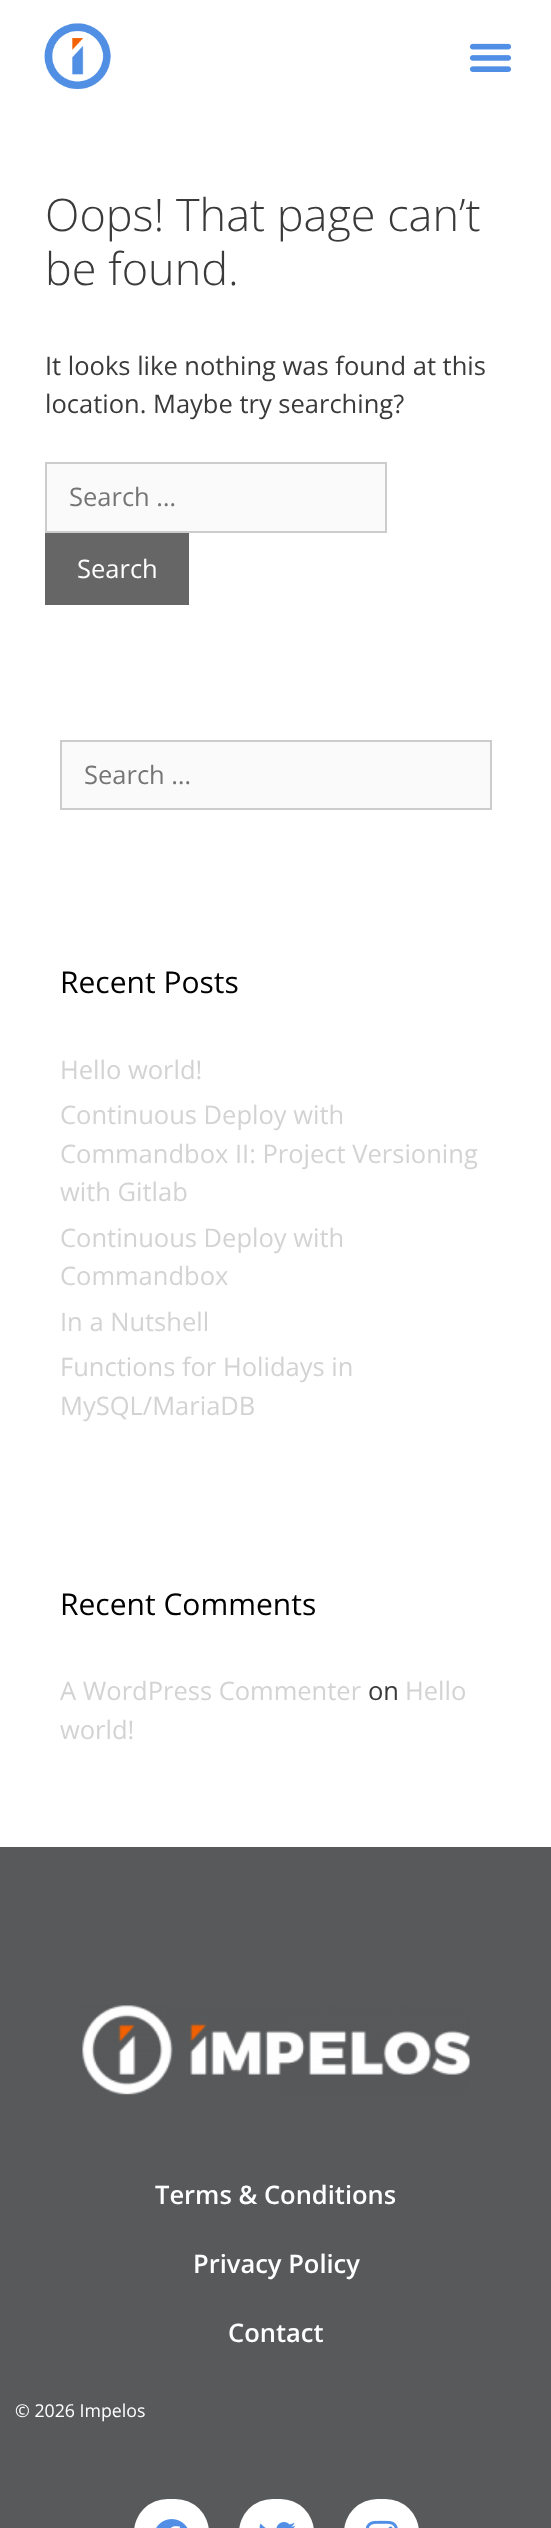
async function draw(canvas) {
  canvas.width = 551
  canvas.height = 2528
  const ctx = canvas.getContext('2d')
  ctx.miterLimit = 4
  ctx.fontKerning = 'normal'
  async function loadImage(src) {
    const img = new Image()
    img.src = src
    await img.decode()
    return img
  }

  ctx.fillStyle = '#fff'
  ctx.fillRect(0, 0, 551, 2528)
  ctx.drawImage(await loadImage('image0.png'), 44, 23, 67, 66)
  ctx.drawImage(await loadImage('image1.png'), 469, 43, 43, 29)
  ctx.font = '300 45px Open Sans'
  ctx.fillStyle = '#3a3a3a'
  ctx.fillText('Oops! That page can’t', 45, 231)
  ctx.fillText('be found.', 45, 285)
  ctx.font = '25.5px Open Sans'
  ctx.fillText('It looks like nothing was found at this', 45, 375)
  ctx.fillText('location. Maybe try searching?', 45, 413)
  ctx.fillStyle = '#fafafa'
  ctx.beginPath()
  ctx.rect(46, 463, 340, 69)
  ctx.fill()
  ctx.strokeStyle = '#ccc'
  ctx.lineWidth = 2
  ctx.stroke()
  ctx.fillStyle = '#757575'
  ctx.fillText('Search …', 69, 506)
  ctx.fillStyle = '#666'
  ctx.fillRect(45, 533, 144, 72)
  ctx.fillStyle = '#fff'
  ctx.fillText('Search', 77, 578)
  ctx.fillStyle = '#fafafa'
  ctx.beginPath()
  ctx.rect(61, 741, 430, 68)
  ctx.fill()
  ctx.stroke()
  ctx.fillStyle = '#757575'
  ctx.fillText('Search …', 84, 784)
  ctx.font = '30px Open Sans'
  ctx.fillStyle = '#000'
  ctx.fillText('Recent Posts', 60, 993)
  ctx.font = '25.5px Open Sans'
  ctx.fillStyle = '#d3d3d3'
  ctx.fillText('Hello world!', 60, 1079)
  ctx.fillText('Continuous Deploy with', 60, 1124)
  ctx.fillText('Commandbox II: Project Versioning', 60, 1163)
  ctx.fillText('with Gitlab', 60, 1201)
  ctx.fillText('Continuous Deploy with', 60, 1247)
  ctx.fillText('Commandbox', 60, 1285)
  ctx.fillText('In a Nutshell', 60, 1331)
  ctx.fillText('Functions for Holidays in', 60, 1376)
  ctx.fillText('MySQL/MariaDB', 60, 1415)
  ctx.font = '30px Open Sans'
  ctx.fillStyle = '#000'
  ctx.fillText('Recent Comments', 60, 1615)
  ctx.font = '25.5px Open Sans'
  ctx.fillStyle = '#d3d3d3'
  ctx.fillText('A WordPress Commenter', 60, 1700)
  ctx.fillStyle = '#3a3a3a'
  ctx.fillText('on', 368, 1700)
  ctx.fillStyle = '#d3d3d3'
  ctx.fillText('Hello', 405, 1700)
  ctx.fillText('world!', 60, 1739)
  ctx.fillStyle = '#58595b'
  ctx.fillRect(0, 1847, 551, 681)
  ctx.drawImage(await loadImage('image2.png'), 82, 2005, 388, 90)
  ctx.font = '600 25.5px Open Sans'
  ctx.fillStyle = '#fff'
  ctx.fillText('Terms & Conditions', 155, 2204)
  ctx.fillText('Privacy Policy', 193, 2273)
  ctx.fillText('Contact', 228, 2342)
  ctx.font = '17.75px Open Sans'
  ctx.fillText('© 2026 Impelos', 15, 2417)
  ctx.beginPath()
  ctx.roundRect(134, 2499, 75, 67, 37.5)
  ctx.fill()
  ctx.drawImage(await loadImage('image3.png'), 156, 2519, 32, 9)
  ctx.beginPath()
  ctx.roundRect(239, 2499, 75, 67, 37.5)
  ctx.fill()
  ctx.drawImage(await loadImage('image4.png'), 259, 2522, 37, 6)
  ctx.beginPath()
  ctx.roundRect(344, 2499, 75, 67, 37.5)
  ctx.fill()
  ctx.drawImage(await loadImage('image5.png'), 365, 2520, 33, 8)
}

draw(document.querySelector('canvas'))
